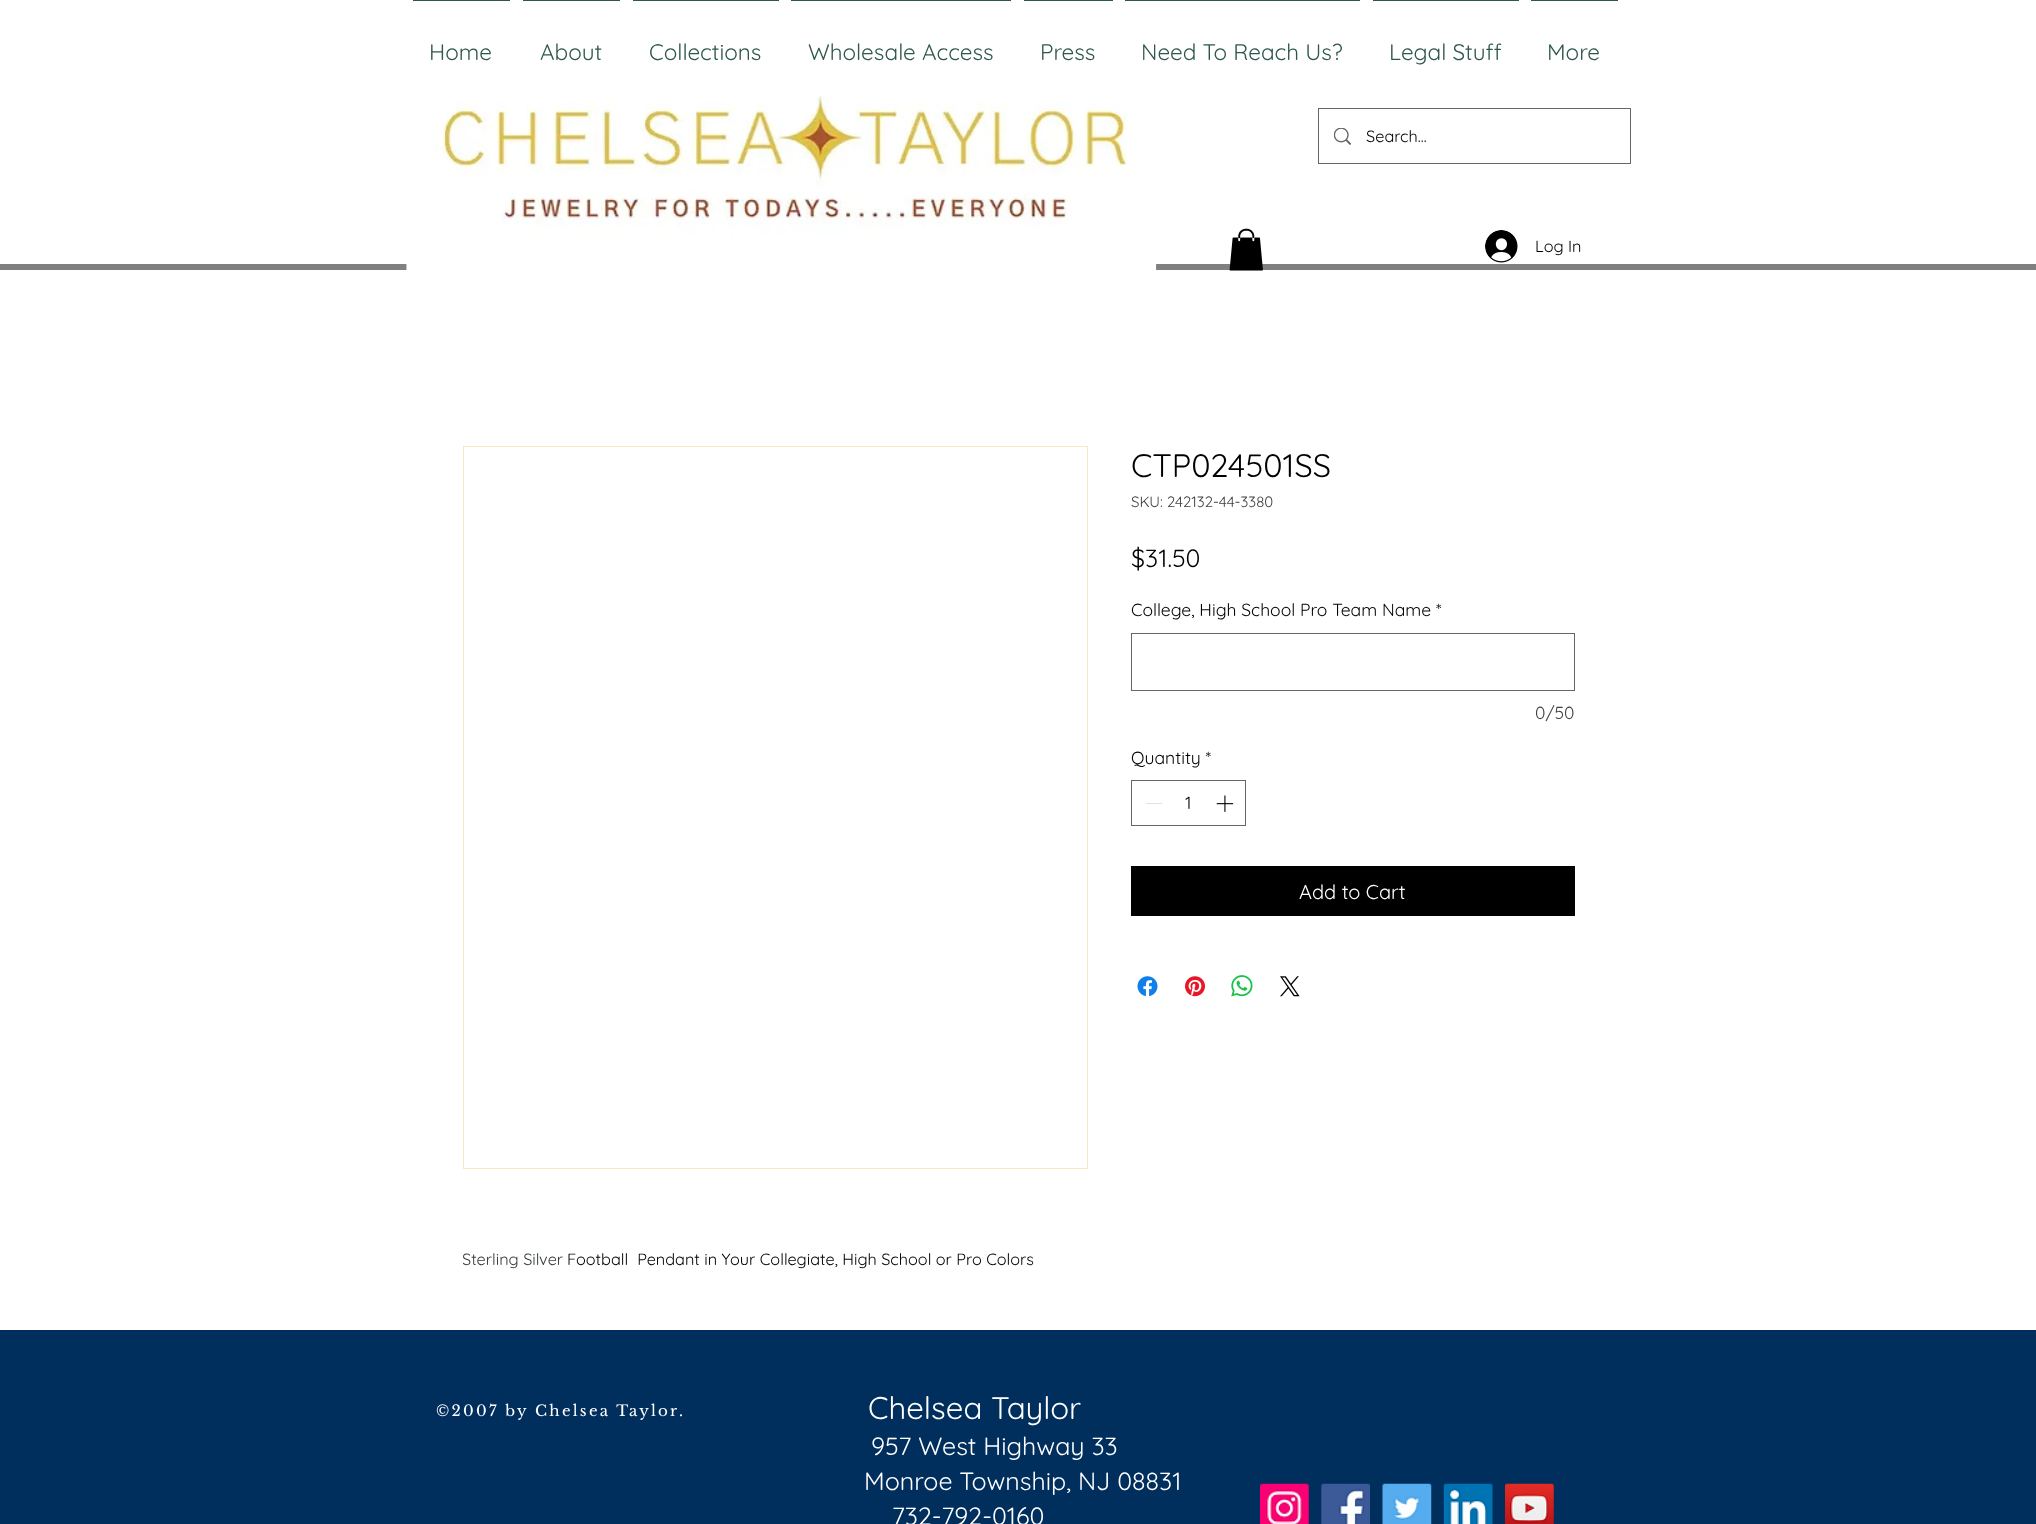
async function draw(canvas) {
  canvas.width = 2036
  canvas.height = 1524
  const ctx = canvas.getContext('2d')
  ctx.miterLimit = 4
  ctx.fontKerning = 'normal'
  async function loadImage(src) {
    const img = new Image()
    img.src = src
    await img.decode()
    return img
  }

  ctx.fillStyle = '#fff'
  ctx.fillRect(0, 0, 2036, 1524)
  ctx.fillStyle = '#30574e'
  ctx.fillRect(413, 0, 97, 1)
  ctx.font = '22.5px Quicksand'
  ctx.fillText('Home', 429, 60)
  ctx.fillRect(523, 0, 97, 1)
  ctx.fillText('About', 540, 60)
  ctx.fillRect(633, 0, 146, 1)
  ctx.fillText('Collections', 649, 60)
  ctx.fillRect(791, 0, 220, 1)
  ctx.fillText('Wholesale Access', 808, 60)
  ctx.fillRect(1024, 0, 89, 1)
  ctx.fillText('Press', 1040, 60)
  ctx.fillRect(1125, 0, 235, 1)
  ctx.fillText('Need To Reach Us?', 1141, 60)
  ctx.fillRect(1373, 0, 146, 1)
  ctx.fillText('Legal Stuff', 1389, 60)
  ctx.fillRect(1531, 0, 87, 1)
  ctx.fillText('More', 1547, 60)
  ctx.fillStyle = '#808080'
  ctx.fillRect(0, 264, 2036, 6)
  ctx.drawImage(await loadImage('image0.png'), 406, 95, 751, 175)
  ctx.strokeStyle = '#666'
  ctx.strokeRect(1318.5, 108.5, 312, 55)
  ctx.drawImage(await loadImage('image1.png'), 1334, 128, 17, 17)
  ctx.font = '16.25px Quicksand'
  ctx.fillStyle = '#000'
  ctx.fillText('Search...', 1366, 142)
  ctx.drawImage(await loadImage('image2.png'), 1229, 228, 34, 43)
  ctx.drawImage(await loadImage('image3.png'), 1485, 230, 33, 33)
  ctx.fillText('Log In', 1535, 252)
  ctx.font = '32.5px Quicksand'
  ctx.fillText('CTP024501SS', 1131, 477)
  ctx.font = '15px Quicksand'
  ctx.fillStyle = '#404040'
  ctx.fillText('SKU: 242132-44-3380', 1131, 507)
  ctx.font = '25px Quicksand'
  ctx.fillStyle = '#000'
  ctx.fillText('$31.50', 1131, 567)
  ctx.font = '17.5px Quicksand'
  ctx.fillText('College, High School Pro Team Name *', 1131, 616)
  ctx.strokeRect(1131.5, 633.5, 443, 57)
  ctx.fillStyle = '#404040'
  ctx.fillText('0/50', 1535, 719)
  ctx.fillStyle = '#000'
  ctx.fillText('Quantity *', 1131, 764)
  ctx.strokeRect(1131.5, 780.5, 114, 45)
  ctx.fillStyle = '#e3e3e3'
  ctx.fillRect(1146, 803, 16, 1)
  ctx.fillStyle = '#000'
  ctx.fillText('1', 1185, 809)
  ctx.drawImage(await loadImage('image4.png'), 1216, 795, 18, 17)
  ctx.fillRect(1131, 866, 444, 50)
  ctx.font = '20px Quicksand'
  ctx.fillStyle = '#fff'
  ctx.fillText('Add to Cart', 1299, 899)
  ctx.drawImage(await loadImage('image5.png'), 1137, 976, 21, 21)
  ctx.drawImage(await loadImage('image6.png'), 1185, 976, 20, 21)
  ctx.drawImage(await loadImage('image7.png'), 1231, 975, 22, 22)
  ctx.drawImage(await loadImage('image8.png'), 1280, 976, 20, 21)
  ctx.strokeStyle = '#fee6c4'
  ctx.strokeRect(463.5, 446.5, 624, 722)
  ctx.save()
  ctx.beginPath()
  ctx.rect(463, 1244, 571, 30)
  ctx.clip()
  ctx.font = '16.25px Quicksand'
  ctx.fillStyle = '#363b3e'
  ctx.fillText('Sterling Silver', 462, 1265)
  ctx.restore()
  ctx.font = '16.25px Quicksand'
  ctx.fillStyle = '#000'
  ctx.fillText('Football  Pendant in Your Collegiate, High School or Pro Colors', 567, 1265)
  ctx.fillStyle = '#002e5d'
  ctx.fillRect(0, 1330, 2036, 194)
  ctx.letterSpacing = '2.25px'
  ctx.font = '15px Libre Baskerville'
  ctx.fillStyle = '#fff'
  ctx.fillText('©2007 by Chelsea Taylor.', 436, 1416)
  ctx.letterSpacing = '0px'
  ctx.font = '31.25px Quicksand'
  ctx.fillText('Chelsea Taylor', 868, 1419)
  ctx.font = '25px Quicksand'
  ctx.fillText('957 West Highway 33', 871, 1455)
  ctx.fillText('Monroe Township, NJ 08831', 864, 1490)
  ctx.fillText('732-792-0160', 892, 1525)
  ctx.drawImage(await loadImage('image9.png'), 1260, 1483, 49, 41)
  ctx.drawImage(await loadImage('image10.png'), 1321, 1483, 49, 41)
  ctx.drawImage(await loadImage('image11.png'), 1382, 1483, 50, 41)
  ctx.drawImage(await loadImage('image12.png'), 1443, 1483, 50, 41)
  ctx.drawImage(await loadImage('image13.png'), 1505, 1483, 49, 41)
}

draw(document.querySelector('canvas'))
